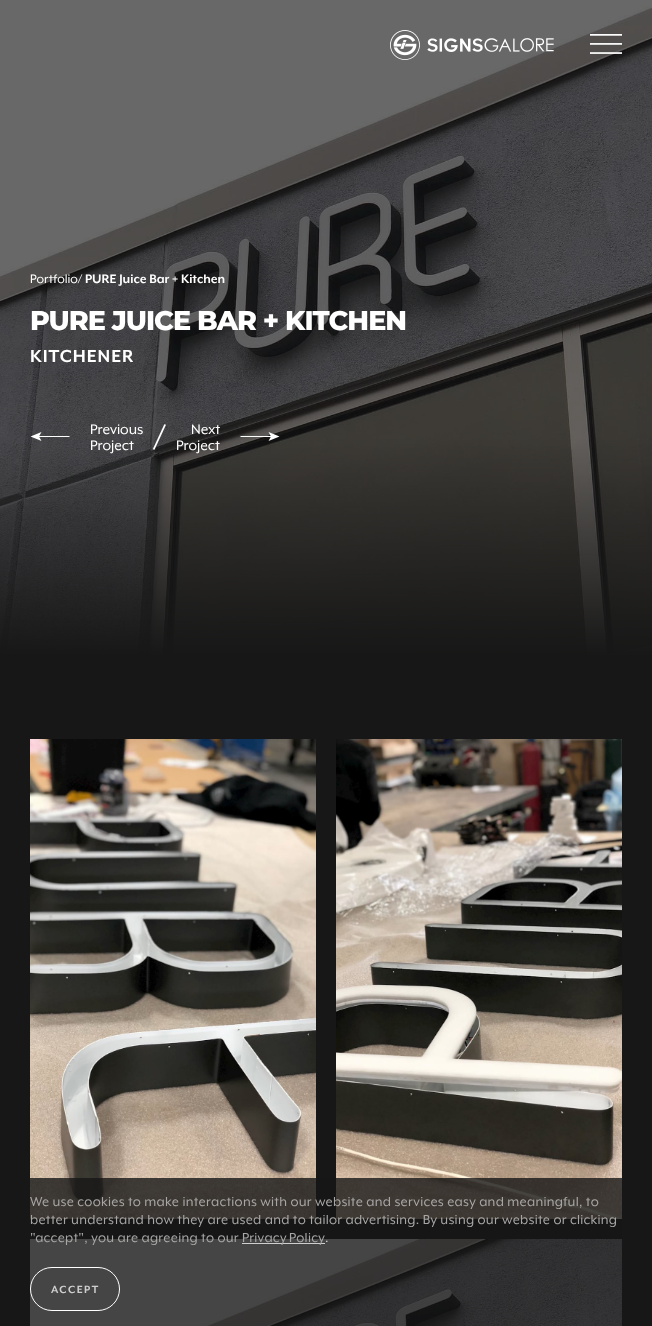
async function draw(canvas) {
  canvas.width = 652
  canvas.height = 1326
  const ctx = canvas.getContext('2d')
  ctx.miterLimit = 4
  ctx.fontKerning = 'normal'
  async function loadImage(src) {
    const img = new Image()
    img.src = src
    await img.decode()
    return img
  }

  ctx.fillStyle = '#171717'
  ctx.fillRect(0, 0, 652, 1326)
  ctx.drawImage(await loadImage('image2.png'), 0, 0, 652, 729)
  ctx.drawImage(await loadImage('image0.png'), 390, 30, 164, 30)
  ctx.drawImage(await loadImage('image1.png'), 590, 34, 32, 20)
  ctx.font = '14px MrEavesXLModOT'
  ctx.fillStyle = '#fff'
  ctx.fillText('Portfolio/', 30, 283)
  ctx.font = 'bold 14px MrEavesXLModOT'
  ctx.fillText('PURE Juice Bar + Kitchen', 85, 283)
  ctx.letterSpacing = '-1px'
  ctx.font = '100 27px Montserrat'
  ctx.fillText('PURE JUICE BAR + KITCHEN', 30, 330)
  ctx.letterSpacing = '1px'
  ctx.font = 'bold 20px MrEavesXLModOT'
  ctx.fillText('KITCHENER', 30, 362)
  ctx.beginPath()
  ctx.moveTo(69.5, 436)
  ctx.lineTo(38.5, 436)
  ctx.lineTo(38.5, 437)
  ctx.lineTo(69.5, 437)
  ctx.fill()
  ctx.beginPath()
  ctx.moveTo(30.5, 436.5)
  ctx.lineTo(41.5, 432)
  ctx.lineTo(39, 436.5)
  ctx.lineTo(41.5, 441)
  ctx.closePath()
  ctx.fill()
  ctx.letterSpacing = '0px'
  ctx.font = '16px MrEavesXLModOT'
  ctx.fillText('Previous', 90, 434)
  ctx.fillText('Project', 90, 450)
  ctx.font = '40px MrEavesXLModOT'
  ctx.fillText('/', 153, 449)
  ctx.font = '16px MrEavesXLModOT'
  ctx.fillText('Next', 191, 434)
  ctx.fillText('Project', 176, 450)
  ctx.beginPath()
  ctx.moveTo(240.5, 437)
  ctx.lineTo(271.5, 437)
  ctx.lineTo(271.5, 436)
  ctx.lineTo(240.5, 436)
  ctx.fill()
  ctx.beginPath()
  ctx.moveTo(279.5, 436.5)
  ctx.lineTo(268.5, 441)
  ctx.lineTo(271, 436.5)
  ctx.lineTo(268.5, 432)
  ctx.closePath()
  ctx.fill()
  ctx.drawImage(await loadImage('image3.png'), 30, 739, 286, 480)
  ctx.drawImage(await loadImage('image4.png'), 336, 739, 286, 480)
  ctx.drawImage(await loadImage('image5.png'), 30, 1239, 592, 87)
  ctx.fillStyle = '#171717cc'
  ctx.fillRect(30, 1178, 592, 148)
  ctx.letterSpacing = '0.28px'
  ctx.font = '15px MrEavesXLModOT'
  ctx.fillStyle = '#a8a7a6'
  ctx.fillText('We use cookies to make interactions with our website and services easy and meaningful, to', 30, 1206)
  ctx.fillText('better understand how they are used and to tailor advertising. By using our website or clicking', 30, 1224)
  ctx.fillText('"accept", you are agreeing to our', 30, 1242)
  ctx.fillStyle = '#cfcfcf'
  ctx.fillRect(242, 1243, 83, 1)
  ctx.wordSpacing = '-1px'
  ctx.fillStyle = '#a8a7a6'
  ctx.fillText('Privacy Policy', 242, 1242)
  ctx.wordSpacing = '0px'
  ctx.fillStyle = '#cfcfcf'
  ctx.fillText('.', 325, 1242)
  ctx.beginPath()
  ctx.roundRect(30.5, 1267.5, 89, 43, 21.5)
  ctx.strokeStyle = '#fff'
  ctx.stroke()
  ctx.letterSpacing = '1.5px'
  ctx.font = 'bold 12px MrEavesXLModOT'
  ctx.fillText('ACCEPT', 51, 1293)
}

draw(document.querySelector('canvas'))
